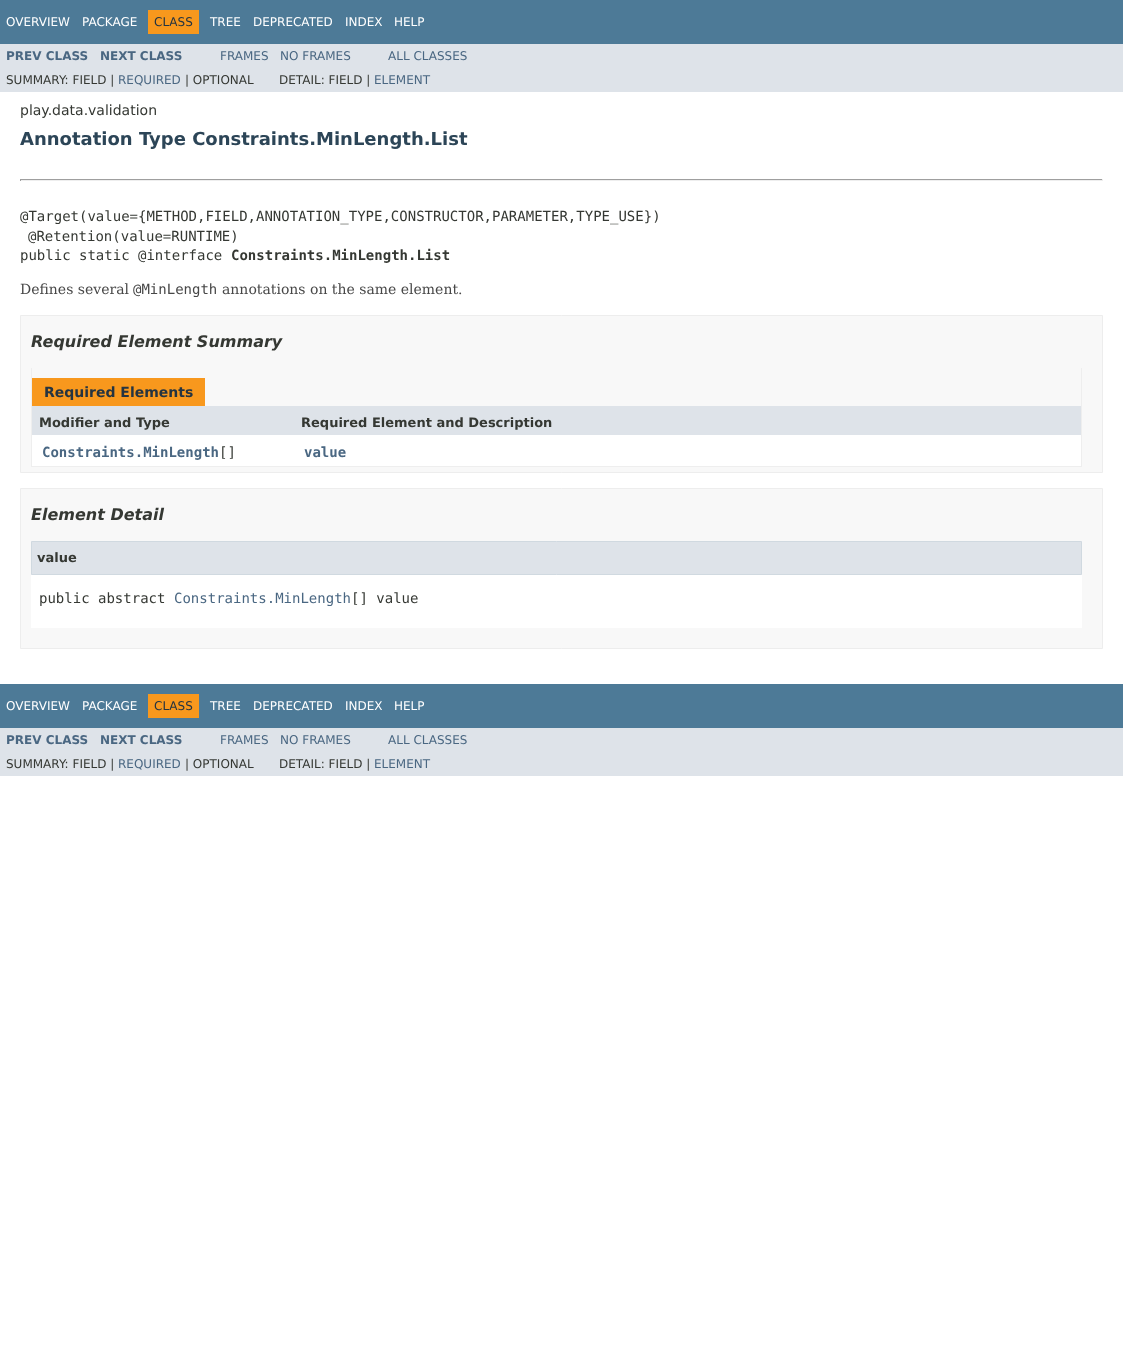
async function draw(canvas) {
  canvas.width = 1123
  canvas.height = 1345
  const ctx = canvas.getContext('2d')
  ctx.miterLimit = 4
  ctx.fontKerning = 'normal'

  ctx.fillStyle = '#fff'
  ctx.fillRect(0, 0, 1123, 1345)
  ctx.fillStyle = '#4d7a97'
  ctx.fillRect(0, 0, 1123, 44)
  ctx.font = '12px DejaVu Sans'
  ctx.fillStyle = '#fff'
  ctx.fillText('OVERVIEW', 6, 26)
  ctx.fillText('PACKAGE', 82, 26)
  ctx.fillStyle = '#f8981d'
  ctx.fillRect(148, 10, 51, 24)
  ctx.fillStyle = '#253441'
  ctx.fillText('CLASS', 154, 26)
  ctx.fillStyle = '#fff'
  ctx.fillText('TREE', 210, 26)
  ctx.fillText('DEPRECATED', 253, 26)
  ctx.fillText('INDEX', 345, 26)
  ctx.fillText('HELP', 394, 26)
  ctx.fillStyle = '#dee3e9'
  ctx.fillRect(0, 44, 1123, 48)
  ctx.font = 'bold 12px DejaVu Sans'
  ctx.fillStyle = '#4a6782'
  ctx.fillText('PREV CLASS', 6, 60)
  ctx.fillText('NEXT CLASS', 100, 60)
  ctx.font = '12px DejaVu Sans'
  ctx.fillText('FRAMES', 220, 60)
  ctx.fillText('NO FRAMES', 280, 60)
  ctx.fillText('ALL CLASSES', 388, 60)
  ctx.fillStyle = '#353833'
  ctx.fillText('SUMMARY: FIELD |', 6, 84)
  ctx.fillStyle = '#4a6782'
  ctx.fillText('REQUIRED', 118, 84)
  ctx.fillStyle = '#353833'
  ctx.fillText('| OPTIONAL', 185, 84)
  ctx.fillText('DETAIL: FIELD |', 279, 84)
  ctx.fillStyle = '#4a6782'
  ctx.fillText('ELEMENT', 374, 84)
  ctx.font = '14px DejaVu Sans'
  ctx.fillStyle = '#353833'
  ctx.fillText('play.data.validation', 20, 115)
  ctx.font = 'bold 18px DejaVu Sans'
  ctx.fillStyle = '#2c4557'
  ctx.fillText('Annotation Type Constraints.MinLength.List', 20, 145)
  ctx.fillStyle = '#9f9f9f'
  ctx.fillRect(20, 179, 1083, 1)
  ctx.fillStyle = '#eee'
  ctx.fillRect(1102, 179, 1, 2)
  ctx.fillRect(20, 180, 1083, 1)
  ctx.fillStyle = '#9f9f9f'
  ctx.fillRect(20, 179, 1, 2)
  ctx.font = '14px DejaVu Sans Mono'
  ctx.fillStyle = '#353833'
  ctx.fillText('@Target(value={METHOD,FIELD,ANNOTATION_TYPE,CONSTRUCTOR,PARAMETER,TYPE_USE})', 20, 221)
  ctx.fillText('@Retention(value=RUNTIME)', 28, 241)
  ctx.fillText('public static @interface', 20, 260)
  ctx.font = 'bold 14px DejaVu Sans Mono'
  ctx.fillText('Constraints.MinLength.List', 231, 260)
  ctx.font = '14px DejaVu Serif'
  ctx.fillStyle = '#474747'
  ctx.fillText('Defines several', 20, 294)
  ctx.font = '14px DejaVu Sans Mono'
  ctx.fillText('@MinLength', 133, 294)
  ctx.font = '14px DejaVu Serif'
  ctx.fillText('annotations on the same element.', 222, 294)
  ctx.fillStyle = '#f8f8f8'
  ctx.beginPath()
  ctx.rect(20.5, 315.5, 1082, 157)
  ctx.fill()
  ctx.strokeStyle = '#ededed'
  ctx.stroke()
  ctx.font = 'italic bold 16px DejaVu Sans'
  ctx.fillStyle = '#353833'
  ctx.fillText('Required Element Summary', 31, 347)
  ctx.fillStyle = '#eee'
  ctx.fillRect(1081, 368, 1, 99)
  ctx.fillRect(31, 466, 1051, 1)
  ctx.fillRect(31, 368, 1, 99)
  ctx.fillStyle = '#f8981d'
  ctx.fillRect(32, 378, 173, 28)
  ctx.font = 'bold 14px DejaVu Sans'
  ctx.fillStyle = '#253441'
  ctx.fillText('Required Elements', 44, 397)
  ctx.fillStyle = '#dee3e9'
  ctx.fillRect(32, 406, 1049, 29)
  ctx.font = 'bold 13px DejaVu Sans'
  ctx.fillStyle = '#353833'
  ctx.fillText('Modifier and Type', 39, 427)
  ctx.fillText('Required Element and Description', 301, 427)
  ctx.fillStyle = '#fff'
  ctx.fillRect(32, 435, 1049, 31)
  ctx.font = 'bold 14px DejaVu Sans Mono'
  ctx.fillStyle = '#4a6782'
  ctx.fillText('Constraints.MinLength', 42, 457)
  ctx.font = '14px DejaVu Sans Mono'
  ctx.fillStyle = '#353833'
  ctx.fillText('[]', 219, 457)
  ctx.font = 'bold 14px DejaVu Sans Mono'
  ctx.fillStyle = '#4a6782'
  ctx.fillText('value', 304, 457)
  ctx.fillStyle = '#f8f8f8'
  ctx.beginPath()
  ctx.rect(20.5, 488.5, 1082, 160)
  ctx.fill()
  ctx.stroke()
  ctx.font = 'italic bold 16px DejaVu Sans'
  ctx.fillStyle = '#353833'
  ctx.fillText('Element Detail', 31, 520)
  ctx.fillStyle = '#fff'
  ctx.fillRect(31, 575, 1051, 53)
  ctx.fillStyle = '#dee3e9'
  ctx.beginPath()
  ctx.rect(31.5, 541.5, 1050, 33)
  ctx.fill()
  ctx.strokeStyle = '#d0d9e0'
  ctx.stroke()
  ctx.font = 'bold 13px DejaVu Sans'
  ctx.fillStyle = '#353833'
  ctx.fillText('value', 37, 562)
  ctx.font = '14px DejaVu Sans Mono'
  ctx.fillText('public abstract', 39, 603)
  ctx.fillStyle = '#4a6782'
  ctx.fillText('Constraints.MinLength', 174, 603)
  ctx.fillStyle = '#353833'
  ctx.fillText('[] value', 351, 603)
  ctx.fillStyle = '#4d7a97'
  ctx.fillRect(0, 684, 1123, 44)
  ctx.font = '12px DejaVu Sans'
  ctx.fillStyle = '#fff'
  ctx.fillText('OVERVIEW', 6, 710)
  ctx.fillText('PACKAGE', 82, 710)
  ctx.fillStyle = '#f8981d'
  ctx.fillRect(148, 694, 51, 24)
  ctx.fillStyle = '#253441'
  ctx.fillText('CLASS', 154, 710)
  ctx.fillStyle = '#fff'
  ctx.fillText('TREE', 210, 710)
  ctx.fillText('DEPRECATED', 253, 710)
  ctx.fillText('INDEX', 345, 710)
  ctx.fillText('HELP', 394, 710)
  ctx.fillStyle = '#dee3e9'
  ctx.fillRect(0, 728, 1123, 48)
  ctx.font = 'bold 12px DejaVu Sans'
  ctx.fillStyle = '#4a6782'
  ctx.fillText('PREV CLASS', 6, 744)
  ctx.fillText('NEXT CLASS', 100, 744)
  ctx.font = '12px DejaVu Sans'
  ctx.fillText('FRAMES', 220, 744)
  ctx.fillText('NO FRAMES', 280, 744)
  ctx.fillText('ALL CLASSES', 388, 744)
  ctx.fillStyle = '#353833'
  ctx.fillText('SUMMARY: FIELD |', 6, 768)
  ctx.fillStyle = '#4a6782'
  ctx.fillText('REQUIRED', 118, 768)
  ctx.fillStyle = '#353833'
  ctx.fillText('| OPTIONAL', 185, 768)
  ctx.fillText('DETAIL: FIELD |', 279, 768)
  ctx.fillStyle = '#4a6782'
  ctx.fillText('ELEMENT', 374, 768)
}

draw(document.querySelector('canvas'))
